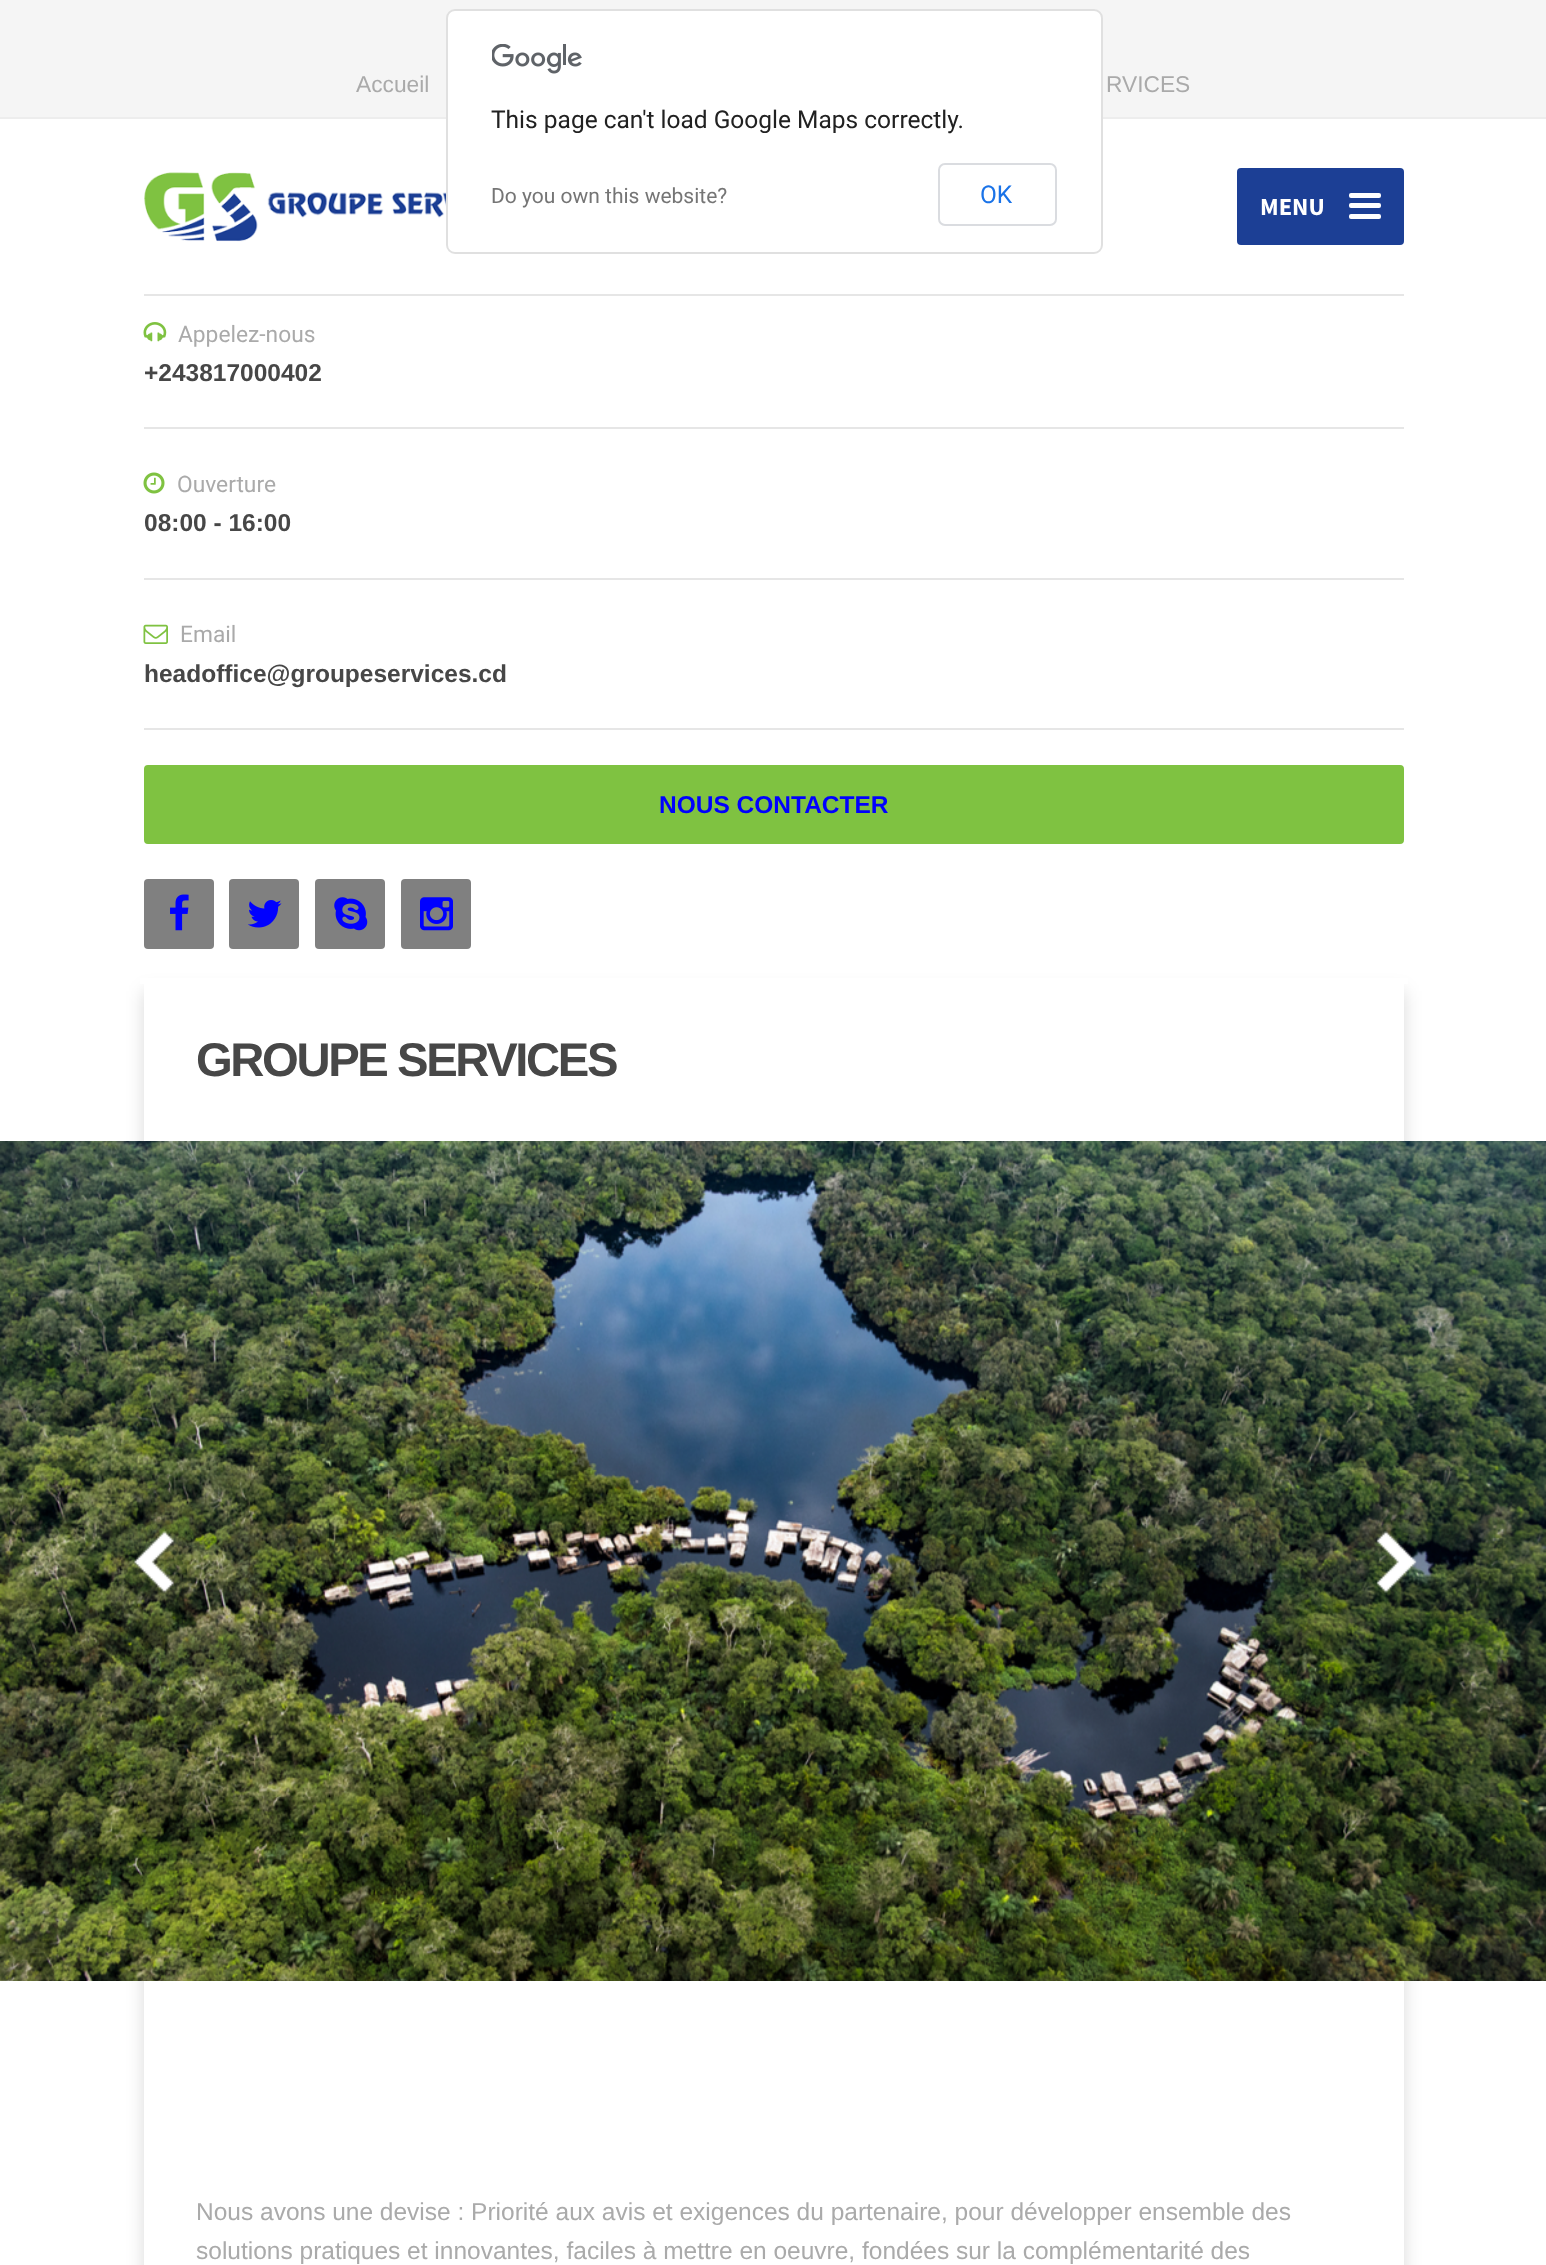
async function draw(canvas) {
  canvas.width = 1546
  canvas.height = 2265
  const ctx = canvas.getContext('2d')
  ctx.miterLimit = 4
  ctx.fontKerning = 'normal'
  async function loadImage(src) {
    const img = new Image()
    img.src = src
    await img.decode()
    return img
  }

  ctx.fillStyle = '#fff'
  ctx.fillRect(0, 0, 1546, 2265)
  ctx.fillStyle = '#f5f5f5'
  ctx.fillRect(0, 0, 1546, 117)
  ctx.fillStyle = '#ededed'
  ctx.fillRect(0, 117, 1546, 2)
  ctx.font = '22.75px Liberation Sans'
  ctx.fillStyle = '#aaa'
  ctx.fillText('Accueil', 356, 92)
  ctx.fillText('RVICES', 1106, 92)
  ctx.fillStyle = '#fff'
  ctx.beginPath()
  ctx.roundRect(446, 9, 657, 245, 9)
  ctx.fill()
  ctx.beginPath()
  ctx.roundRect(447, 10, 655, 243, 8)
  ctx.strokeStyle = '#0000001f'
  ctx.lineWidth = 2
  ctx.stroke()
  ctx.drawImage(await loadImage('image0.png'), 492, 44, 90, 30)
  ctx.font = '24.5px Roboto'
  ctx.fillStyle = '#212121'
  ctx.fillText('This page can\'t load Google Maps correctly.', 491, 128)
  ctx.font = '21px Roboto'
  ctx.fillStyle = '#757575'
  ctx.fillText('Do you own this website?', 491, 203)
  ctx.beginPath()
  ctx.roundRect(939, 164, 117, 61, 6)
  ctx.strokeStyle = '#dadce0'
  ctx.stroke()
  ctx.font = '24.5px Roboto'
  ctx.fillStyle = '#1a73e8'
  ctx.fillText('OK', 980, 203)
  ctx.fillStyle = '#00000026'
  ctx.filter = 'blur(9px)'
  ctx.beginPath()
  ctx.rect(144, 991, 1260, 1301)
  ctx.fill()
  ctx.filter = 'none'
  ctx.fillStyle = '#fff'
  ctx.fillRect(144, 984, 1260, 1281)
  ctx.letterSpacing = '-2.4px'
  ctx.font = 'bold 47.25px Liberation Sans'
  ctx.fillStyle = '#474747'
  ctx.fillText('GROUPE SERVICES', 196, 1076)
  ctx.drawImage(await loadImage('image1.png'), 0, 1141, 1546, 840)
  ctx.drawImage(await loadImage('image2.png'), 134, 1531, 41, 62)
  ctx.drawImage(await loadImage('image3.png'), 1376, 1531, 41, 62)
  ctx.letterSpacing = '0px'
  ctx.font = '24.5px Liberation Sans'
  ctx.fillStyle = '#aaa'
  ctx.fillText('Nous avons une devise : Priorité aux avis et exigences du partenaire, pour développer ensemble des', 196, 2220)
  ctx.fillText('solutions pratiques et innovantes, faciles à mettre en oeuvre, fondées sur la complémentarité des', 196, 2259)
  ctx.fillStyle = '#fff'
  ctx.fillRect(140, 978, 1268, 6)
  ctx.fillStyle = '#e6e6e6'
  ctx.fillRect(144, 294, 1260, 2)
  ctx.drawImage(await loadImage('image4.png'), 144, 172, 302, 70)
  ctx.fillStyle = '#1c3f95'
  ctx.beginPath()
  ctx.roundRect(1237, 168, 167, 77, 4)
  ctx.fill()
  ctx.font = 'bold 24.5px Source Sans Pro'
  ctx.fillStyle = '#fff'
  ctx.fillText('MENU', 1260, 215)
  ctx.beginPath()
  ctx.roundRect(1349, 193, 32, 5, 2)
  ctx.fill()
  ctx.beginPath()
  ctx.roundRect(1349, 203, 32, 5, 2)
  ctx.fill()
  ctx.beginPath()
  ctx.roundRect(1349, 214, 32, 5, 2)
  ctx.fill()
  ctx.fillStyle = '#e6e6e6'
  ctx.fillRect(144, 427, 1260, 2)
  ctx.drawImage(await loadImage('image5.png'), 143, 322, 24, 20)
  ctx.font = '22.75px Roboto'
  ctx.fillStyle = '#aaa'
  ctx.fillText('Appelez-nous', 178, 342)
  ctx.font = 'bold 24.5px Liberation Sans'
  ctx.fillStyle = '#474747'
  ctx.fillText('+243817000402', 144, 381)
  ctx.fillStyle = '#e6e6e6'
  ctx.fillRect(144, 578, 1260, 2)
  ctx.drawImage(await loadImage('image6.png'), 143, 472, 22, 22)
  ctx.font = '22.75px Roboto'
  ctx.fillStyle = '#aaa'
  ctx.fillText('Ouverture', 177, 492)
  ctx.font = 'bold 24.5px Liberation Sans'
  ctx.fillStyle = '#474747'
  ctx.fillText('08:00 - 16:00', 144, 531)
  ctx.fillStyle = '#e6e6e6'
  ctx.fillRect(144, 728, 1260, 2)
  ctx.drawImage(await loadImage('image7.png'), 143, 624, 25, 20)
  ctx.font = '22.75px Roboto'
  ctx.fillStyle = '#aaa'
  ctx.fillText('Email', 180, 642)
  ctx.font = 'bold 24.5px Liberation Sans'
  ctx.fillStyle = '#474747'
  ctx.fillText('headoffice@groupeservices.cd', 144, 682)
  ctx.fillStyle = '#7fc241'
  ctx.beginPath()
  ctx.roundRect(145, 766, 1258, 77, 3)
  ctx.fill()
  ctx.strokeStyle = '#7fc241'
  ctx.stroke()
  ctx.fillStyle = '#00f'
  ctx.fillText('NOUS CONTACTER', 659, 813)
  ctx.fillStyle = '#808080'
  ctx.beginPath()
  ctx.roundRect(144, 879, 70, 70, 4)
  ctx.fill()
  ctx.drawImage(await loadImage('image8.png'), 170, 894, 19, 37)
  ctx.beginPath()
  ctx.roundRect(229, 879, 70, 70, 4)
  ctx.fill()
  ctx.drawImage(await loadImage('image9.png'), 248, 900, 34, 28)
  ctx.beginPath()
  ctx.roundRect(315, 879, 70, 70, 4)
  ctx.fill()
  ctx.drawImage(await loadImage('image10.png'), 334, 897, 34, 34)
  ctx.beginPath()
  ctx.roundRect(401, 879, 70, 70, 4)
  ctx.fill()
  ctx.drawImage(await loadImage('image11.png'), 420, 897, 33, 34)
}

draw(document.querySelector('canvas'))
